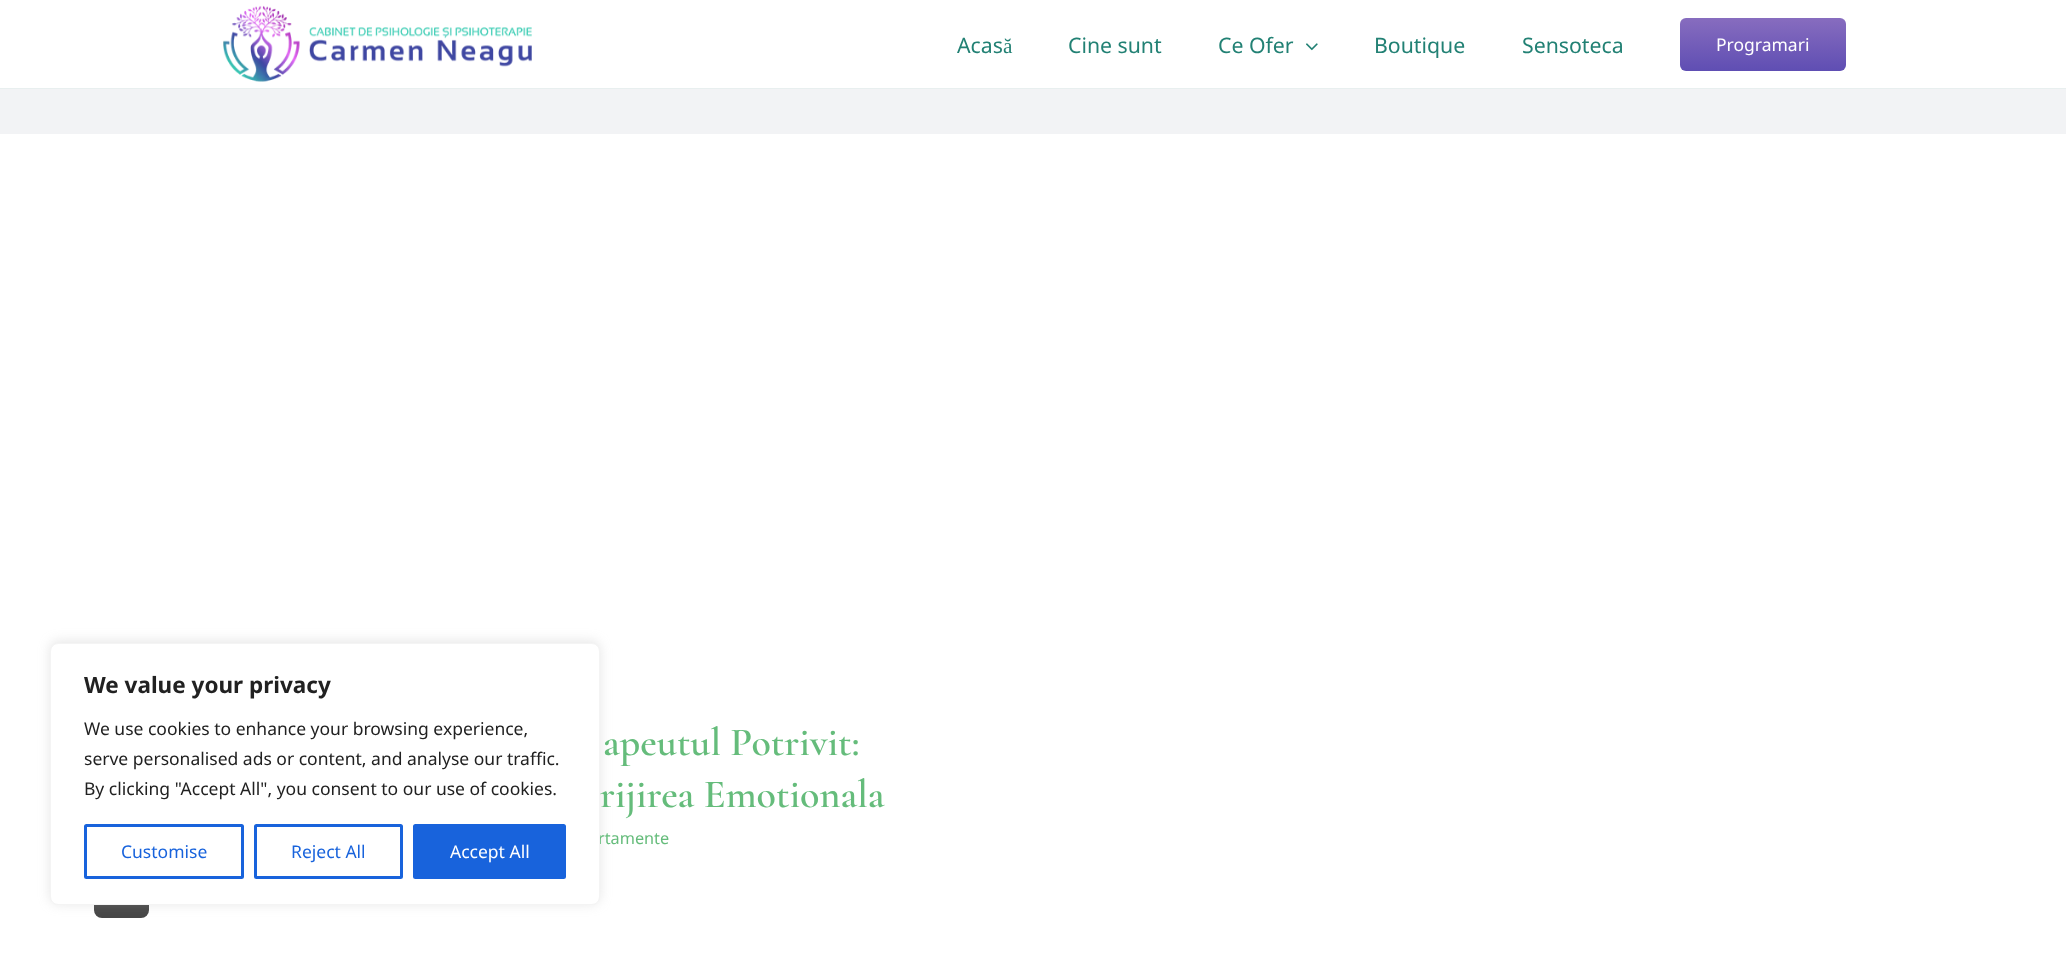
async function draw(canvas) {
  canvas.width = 2066
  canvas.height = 954
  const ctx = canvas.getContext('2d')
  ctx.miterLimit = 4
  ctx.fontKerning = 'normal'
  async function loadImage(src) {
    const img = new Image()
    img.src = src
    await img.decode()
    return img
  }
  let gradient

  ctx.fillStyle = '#fff'
  ctx.fillRect(0, 0, 2066, 954)
  ctx.fillStyle = '#474747'
  ctx.beginPath()
  ctx.roundRect(94, 863, 55, 55, 8)
  ctx.fill()
  ctx.fillStyle = '#acabab4d'
  ctx.filter = 'blur(6px)'
  ctx.beginPath()
  ctx.roundRect(50, 641, 550, 263, 8)
  ctx.fill()
  ctx.filter = 'none'
  ctx.font = '16.25px Noto Sans'
  ctx.fillStyle = '#65bc7b'
  ctx.fillText('rtamente', 598, 844)
  ctx.fillStyle = '#fff'
  ctx.beginPath()
  ctx.roundRect(50.5, 643.5, 549, 261, 7.5)
  ctx.fill()
  ctx.strokeStyle = '#f4f4f4'
  ctx.stroke()
  ctx.font = 'bold 22.5px Noto Sans'
  ctx.fillStyle = '#212121'
  ctx.fillText('We value your privacy', 84, 693)
  ctx.font = '17.5px Noto Sans'
  ctx.fillText('We use cookies to enhance your browsing experience,', 84, 735)
  ctx.fillText('serve personalised ads or content, and analyse our traffic.', 84, 765)
  ctx.fillText('By clicking "Accept All", you consent to our use of cookies.', 84, 795)
  ctx.beginPath()
  ctx.roundRect(85.5, 825.5, 157, 52, 1)
  ctx.strokeStyle = '#1863dc'
  ctx.lineWidth = 3
  ctx.stroke()
  ctx.fillStyle = '#1863dc'
  ctx.fillText('Customise', 121, 858)
  ctx.beginPath()
  ctx.roundRect(255.5, 825.5, 146, 52, 1)
  ctx.stroke()
  ctx.fillText('Reject All', 291, 858)
  ctx.beginPath()
  ctx.roundRect(414.5, 825.5, 150, 52, 1)
  ctx.fill()
  ctx.stroke()
  ctx.fillStyle = '#fff'
  ctx.fillText('Accept All', 450, 858)
  ctx.fillStyle = '#e8efef'
  ctx.fillRect(0, 88, 2066, 1)
  ctx.drawImage(await loadImage('image0.png'), 223, 5, 309, 77)
  ctx.font = '21.25px Noto Sans'
  ctx.fillStyle = '#228174'
  ctx.fillText('Acas', 957, 53)
  ctx.font = '21.25px Liberation Serif'
  ctx.fillText('ă', 1003, 53)
  ctx.font = '21.25px Noto Sans'
  ctx.fillText('Cine sunt', 1068, 53)
  ctx.fillText('Ce Ofer', 1218, 53)
  ctx.drawImage(await loadImage('image1.png'), 1306, 43, 12, 8)
  ctx.fillText('Boutique', 1374, 53)
  ctx.fillText('Sensoteca', 1522, 53)
  gradient = ctx.createLinearGradient(1763, 17, 1763, 71)
  gradient.addColorStop(0, '#886dbf')
  gradient.addColorStop(1, '#5f4eb3')
  ctx.fillStyle = gradient
  ctx.beginPath()
  ctx.roundRect(1680, 18, 166, 53, 6)
  ctx.fill()
  ctx.font = '17.5px Noto Sans'
  ctx.fillStyle = '#fff'
  ctx.fillText('Programari', 1716, 51)
  ctx.fillStyle = '#f2f3f5'
  ctx.fillRect(0, 89, 2066, 45)
  ctx.font = '600 40px Cormorant Garamond'
  ctx.fillStyle = '#65bc7b'
  ctx.fillText('apeutul Potrivit:', 603, 755)
  ctx.fillText('rijirea Emotionala', 600, 807)
}

draw(document.querySelector('canvas'))
